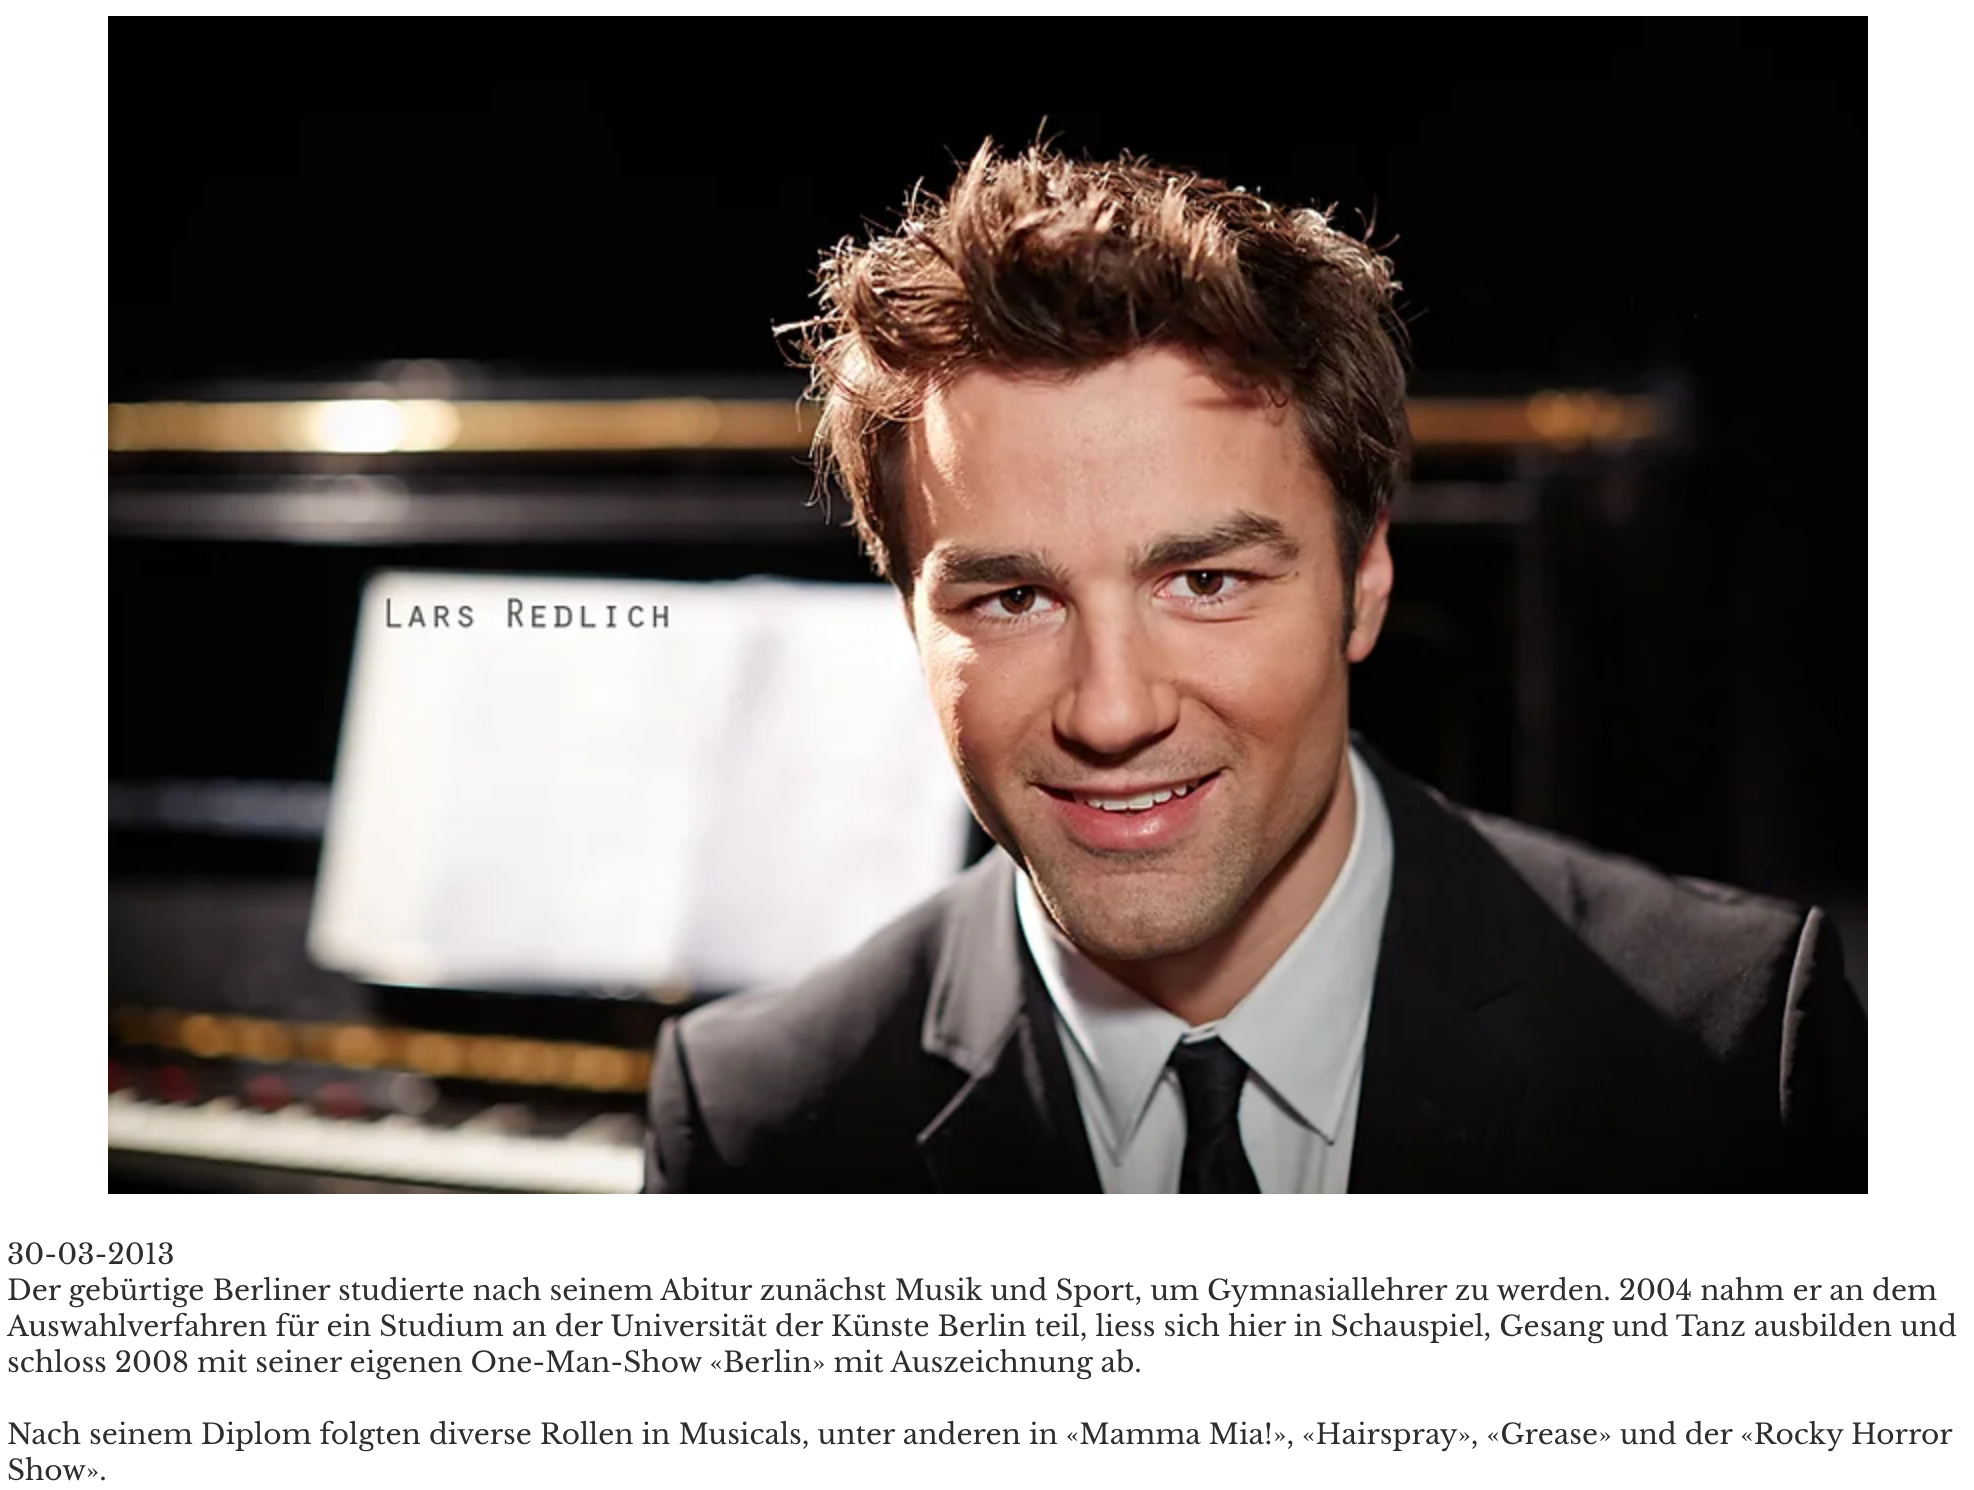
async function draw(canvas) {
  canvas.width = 1974
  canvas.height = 1490
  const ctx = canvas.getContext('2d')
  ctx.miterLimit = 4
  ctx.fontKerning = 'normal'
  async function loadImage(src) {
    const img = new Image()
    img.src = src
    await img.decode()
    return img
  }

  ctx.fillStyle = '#fff'
  ctx.fillRect(0, 0, 1974, 1490)
  ctx.drawImage(await loadImage('image0.png'), 108, 16, 1760, 1178)
  ctx.font = '28px Libre Baskerville'
  ctx.fillStyle = '#2f2e2e'
  ctx.fillText('30-03-2013', 7, 1264)
  ctx.fillText('Der gebürtige Berliner studierte nach seinem Abitur zunächst Musik und Sport, um Gymnasiallehrer zu werden. 2004 nahm er an dem', 7, 1300)
  ctx.fillText('Auswahlverfahren für ein Studium an der Universität der Künste Berlin teil, liess sich hier in Schauspiel, Gesang und Tanz ausbilden und', 7, 1336)
  ctx.fillText('schloss 2008 mit seiner eigenen One-Man-Show «Berlin» mit Auszeichnung ab.', 7, 1372)
  ctx.fillText('Nach seinem Diplom folgten diverse Rollen in Musicals, unter anderen in «Mamma Mia!», «Hairspray», «Grease» und der «Rocky Horror', 7, 1444)
  ctx.fillText('Show».', 7, 1480)
}

draw(document.querySelector('canvas'))
